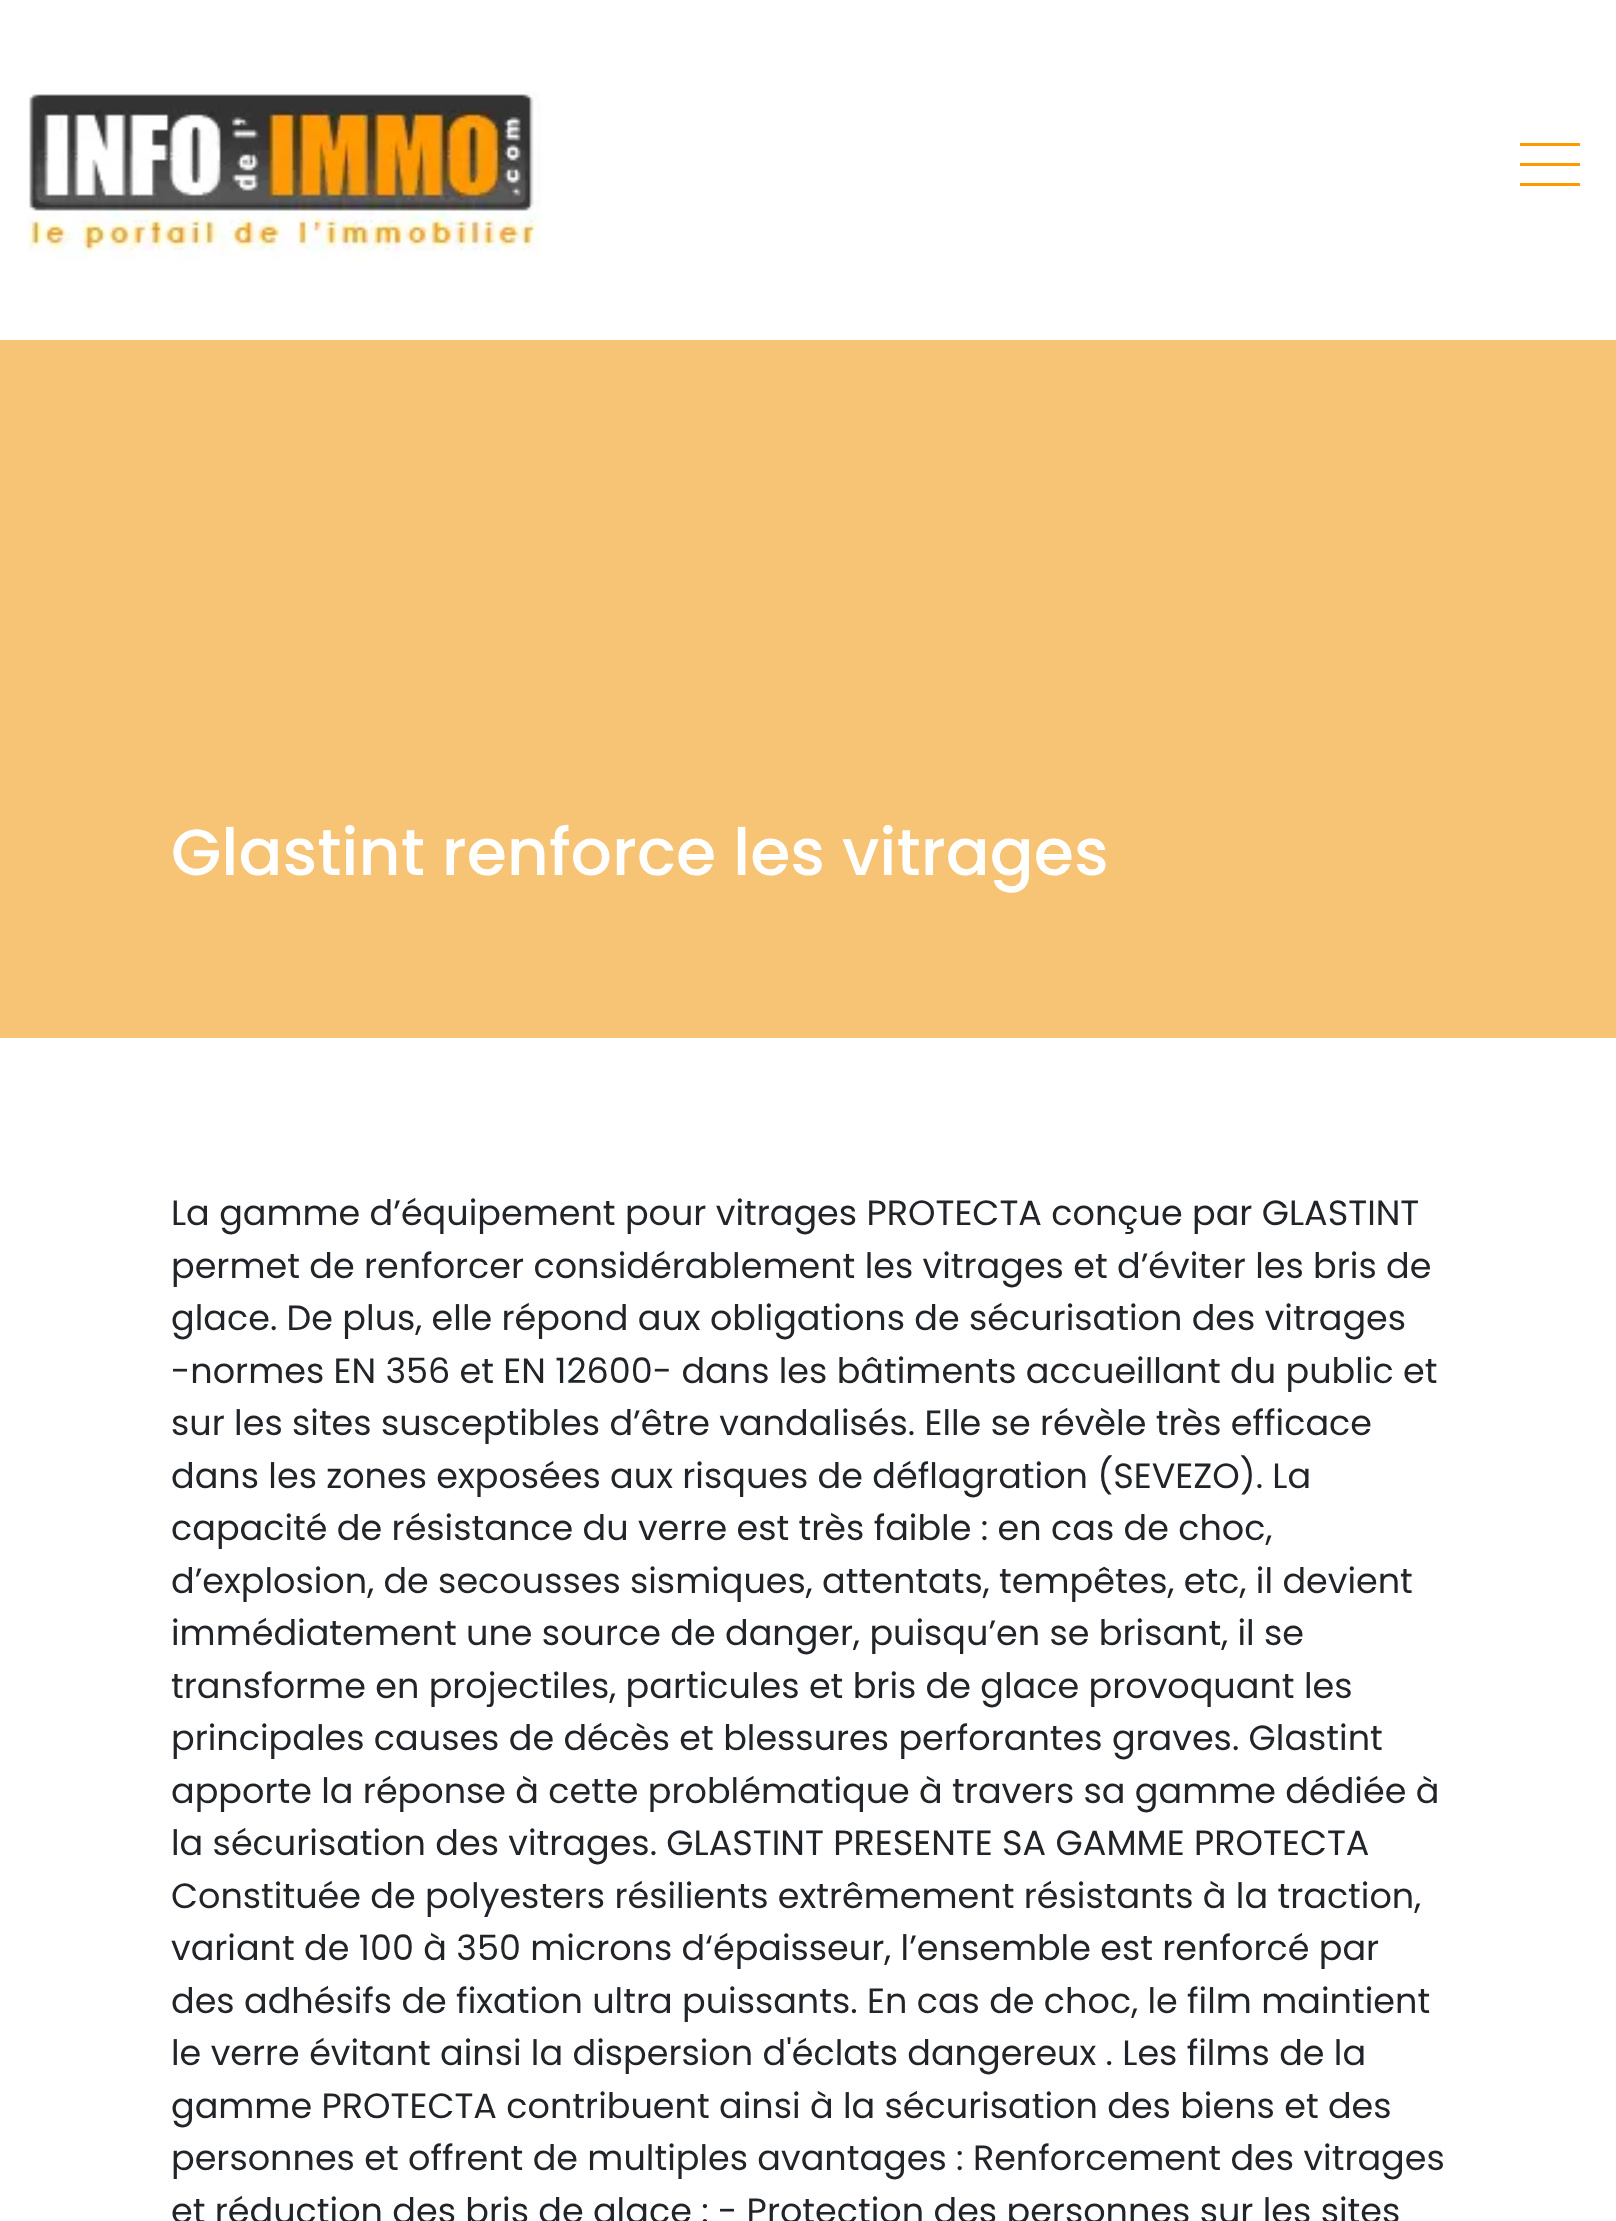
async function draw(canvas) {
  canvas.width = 1616
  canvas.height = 2221
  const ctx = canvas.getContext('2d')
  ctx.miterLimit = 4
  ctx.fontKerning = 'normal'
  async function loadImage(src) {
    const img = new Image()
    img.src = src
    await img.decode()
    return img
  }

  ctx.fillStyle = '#fff'
  ctx.fillRect(0, 0, 1616, 2221)
  ctx.drawImage(await loadImage('image0.png'), 27, 91, 514, 170)
  ctx.fillStyle = '#f90'
  ctx.fillRect(1520, 143, 60, 3)
  ctx.fillRect(1520, 163, 60, 3)
  ctx.fillRect(1520, 183, 60, 3)
  ctx.fillStyle = '#f7c375'
  ctx.fillRect(0, 340, 1616, 698)
  ctx.font = '500 65px Poppins'
  ctx.fillStyle = '#fff'
  ctx.fillText('Glastint renforce les vitrages', 171, 875)
  ctx.font = '35px Poppins'
  ctx.fillStyle = '#212529'
  ctx.fillText('La gamme d’équipement pour vitrages PROTECTA conçue par GLASTINT', 171, 1225)
  ctx.fillText('permet de renforcer considérablement les vitrages et d’éviter les bris de', 171, 1278)
  ctx.fillText('glace. De plus, elle répond aux obligations de sécurisation des vitrages', 171, 1330)
  ctx.fillText('-normes EN 356 et EN 12600- dans les bâtiments accueillant du public et', 171, 1383)
  ctx.fillText('sur les sites susceptibles d’être vandalisés. Elle se révèle très efficace', 171, 1435)
  ctx.fillText('dans les zones exposées aux risques de déflagration (SEVEZO). La', 171, 1488)
  ctx.fillText('capacité de résistance du verre est très faible : en cas de choc,', 171, 1540)
  ctx.fillText('d’explosion, de secousses sismiques, attentats, tempêtes, etc, il devient', 171, 1593)
  ctx.fillText('immédiatement une source de danger, puisqu’en se brisant, il se', 171, 1645)
  ctx.fillText('transforme en projectiles, particules et bris de glace provoquant les', 171, 1698)
  ctx.fillText('principales causes de décès et blessures perforantes graves. Glastint', 171, 1750)
  ctx.fillText('apporte la réponse à cette problématique à travers sa gamme dédiée à', 171, 1803)
  ctx.fillText('la sécurisation des vitrages. GLASTINT PRESENTE SA GAMME PROTECTA', 171, 1855)
  ctx.fillText('Constituée de polyesters résilients extrêmement résistants à la traction,', 171, 1908)
  ctx.fillText('variant de 100 à 350 microns d‘épaisseur, l’ensemble est renforcé par', 171, 1960)
  ctx.fillText('des adhésifs de fixation ultra puissants. En cas de choc, le film maintient', 171, 2013)
  ctx.fillText('le verre évitant ainsi la dispersion d\'éclats dangereux . Les films de la', 171, 2065)
  ctx.fillText('gamme PROTECTA contribuent ainsi à la sécurisation des biens et des', 171, 2118)
  ctx.fillText('personnes et offrent de multiples avantages : Renforcement des vitrages', 171, 2170)
  ctx.fillText('et réduction des bris de glace : - Protection des personnes sur les sites', 171, 2223)
}

draw(document.querySelector('canvas'))
